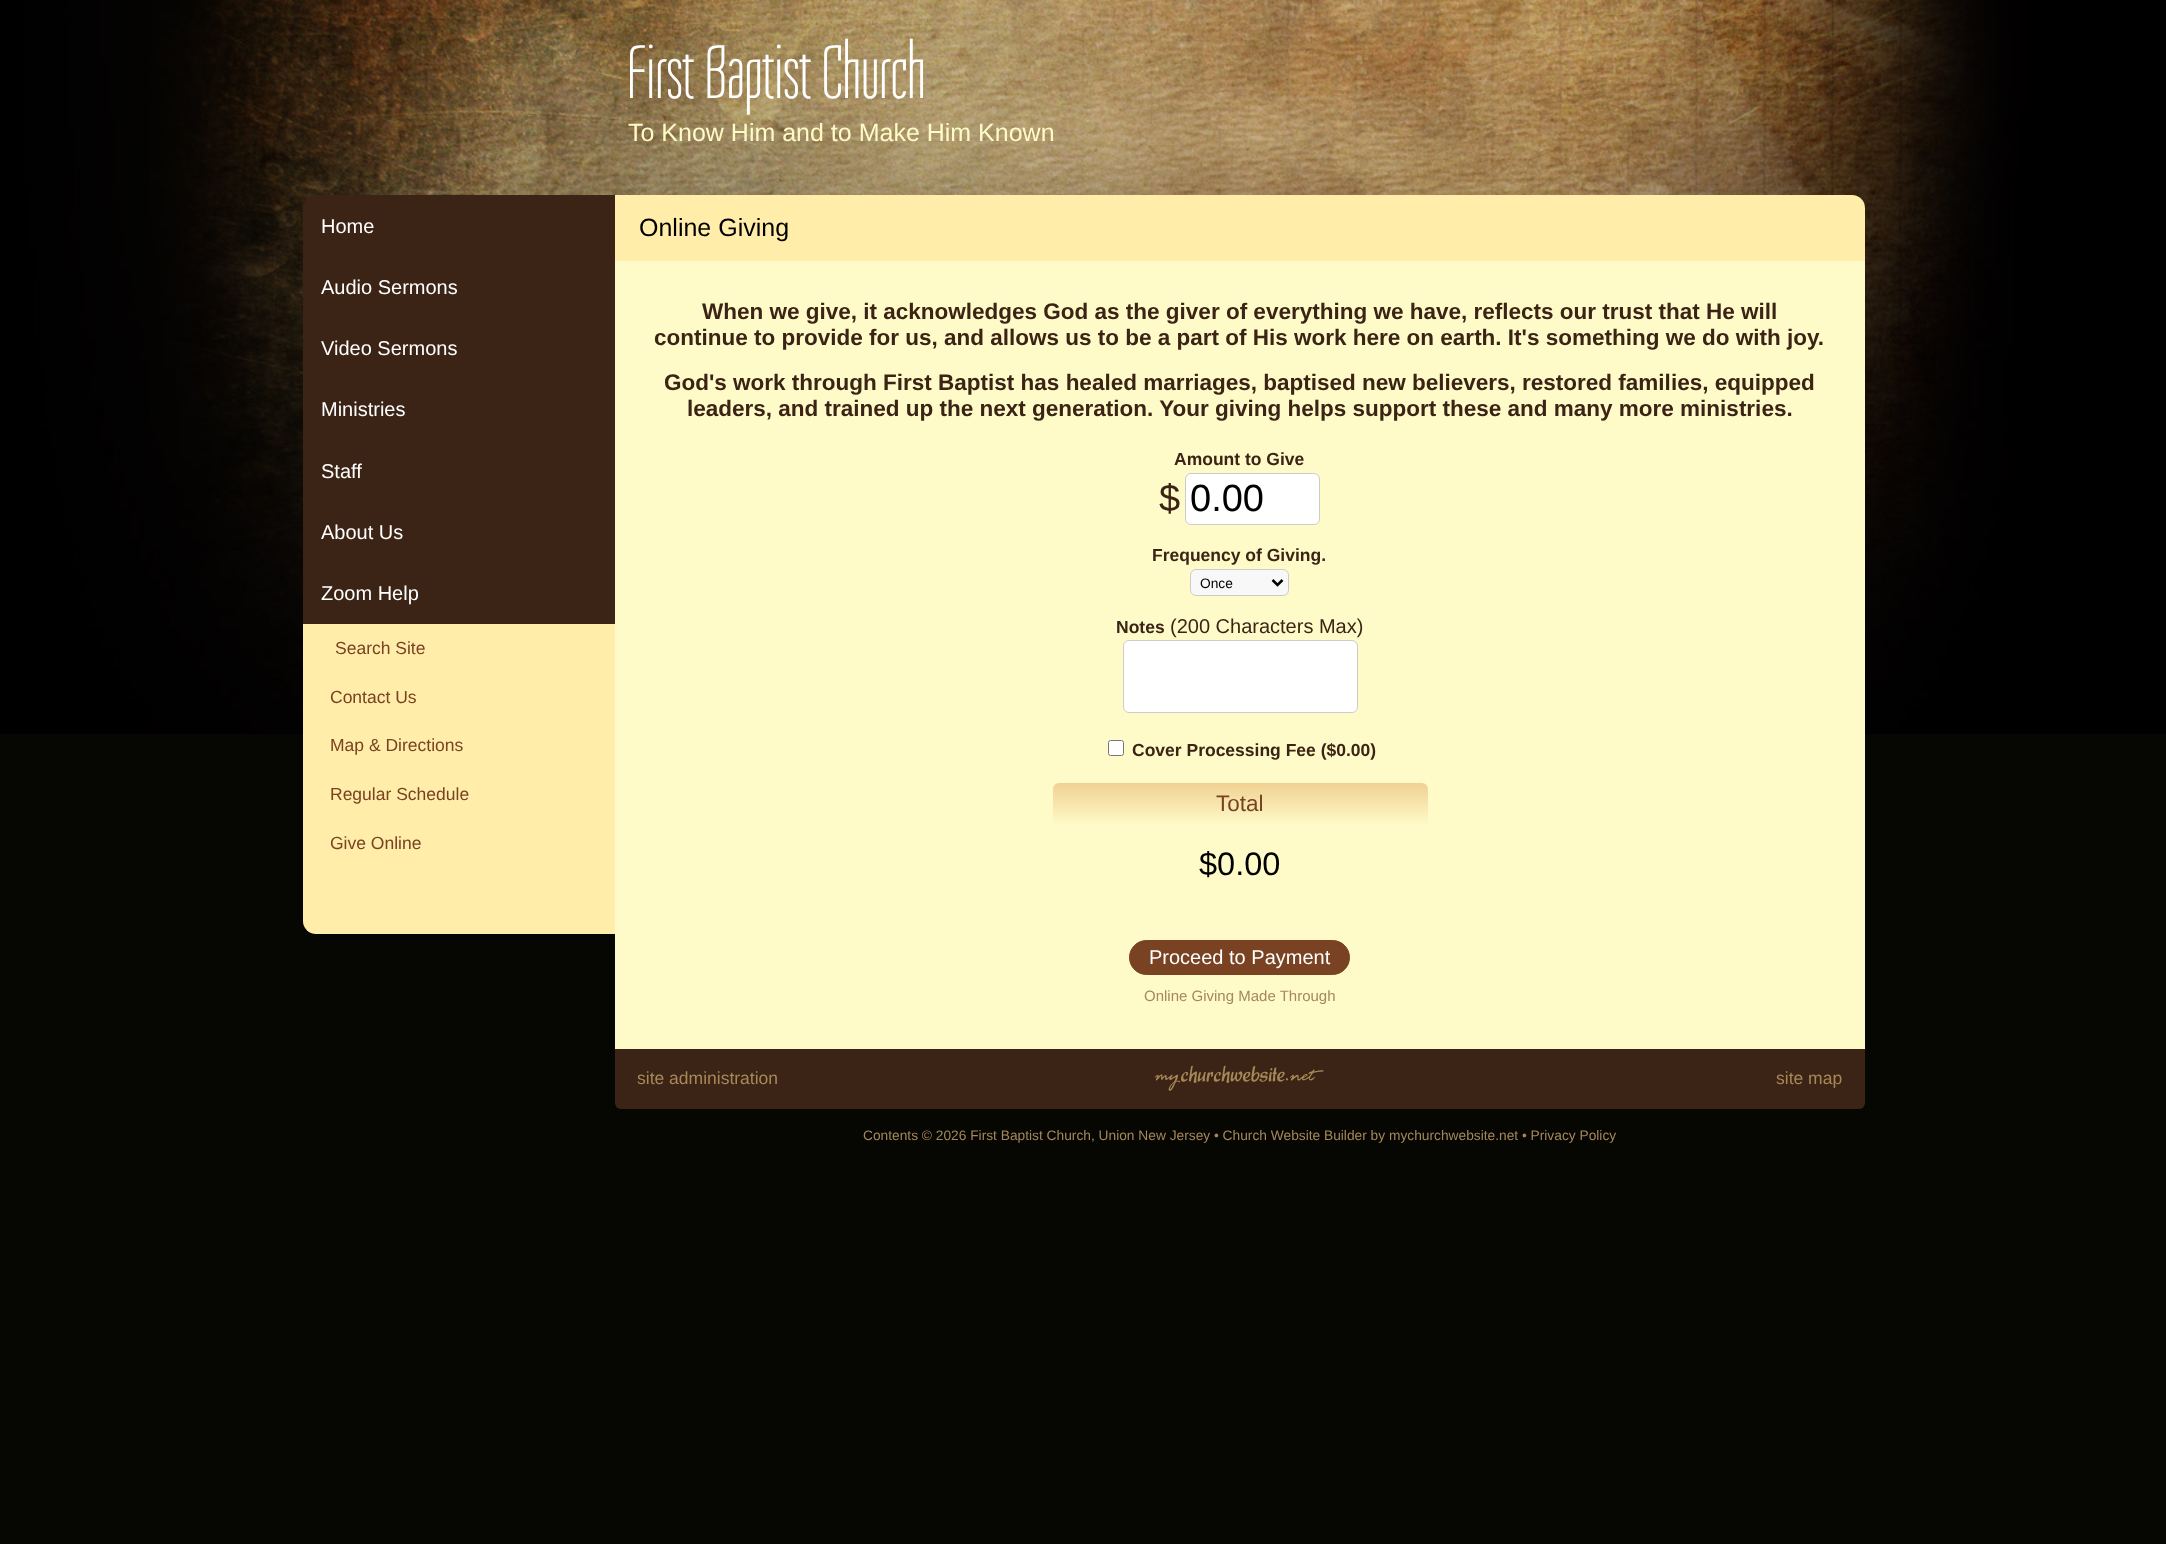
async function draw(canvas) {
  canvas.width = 2166
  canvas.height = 1544
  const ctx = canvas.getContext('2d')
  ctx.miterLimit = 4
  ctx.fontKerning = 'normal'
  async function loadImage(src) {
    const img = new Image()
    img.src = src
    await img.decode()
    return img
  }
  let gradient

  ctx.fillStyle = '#060602'
  ctx.fillRect(0, 0, 2166, 1544)
  ctx.drawImage(await loadImage('image0.png'), 0, 0, 2166, 734)
  ctx.font = '77.5px Tulpen One'
  ctx.fillStyle = '#fff'
  ctx.fillText('First Baptist Church', 627, 98)
  ctx.font = '25px Liberation Sans'
  ctx.fillStyle = '#fffbc9'
  ctx.fillText('To Know Him and to Make Him Known', 628, 141)
  ctx.fillStyle = '#3b2415'
  ctx.beginPath()
  ctx.roundRect(303, 195, 312, 61, [13, 0, 0, 0])
  ctx.fill()
  ctx.font = '20px Liberation Sans'
  ctx.fillStyle = '#fff'
  ctx.fillText('Home', 321, 233)
  ctx.fillStyle = '#3b2415'
  ctx.fillRect(303, 256, 312, 368)
  ctx.fillStyle = '#fff'
  ctx.fillText('Audio Sermons', 321, 294)
  ctx.fillText('Video Sermons', 321, 355)
  ctx.fillText('Ministries', 321, 416)
  ctx.fillText('Staff', 321, 478)
  ctx.fillText('About Us', 321, 539)
  ctx.fillText('Zoom Help', 321, 600)
  ctx.fillStyle = '#ffeda9'
  ctx.fillRect(303, 624, 312, 244)
  ctx.font = '17.5px Liberation Sans'
  ctx.fillStyle = '#794222'
  ctx.fillText('Search Site', 335, 654)
  ctx.fillText('Contact Us', 330, 703)
  ctx.fillText('Map & Directions', 330, 751)
  ctx.fillText('Regular Schedule', 330, 800)
  ctx.fillText('Give Online', 330, 849)
  ctx.fillStyle = '#ffeda9'
  ctx.beginPath()
  ctx.roundRect(303, 868, 312, 66, [0, 0, 0, 13])
  ctx.fill()
  ctx.beginPath()
  ctx.roundRect(615, 195, 1250, 66, [0, 13, 0, 0])
  ctx.fill()
  ctx.font = '25px Liberation Sans'
  ctx.fillStyle = '#000'
  ctx.fillText('Online Giving', 639, 236)
  ctx.fillStyle = '#fffbc9'
  ctx.fillRect(615, 261, 1250, 788)
  ctx.font = 'bold 22.5px Liberation Sans'
  ctx.fillStyle = '#3b2415'
  ctx.fillText('When we give, it acknowledges God as the giver of everything we have, reflects our trust that He will', 702, 319)
  ctx.fillText('continue to provide for us, and allows us to be a part of His work here on earth. It\'s something we do with joy.', 654, 345)
  ctx.fillText('God\'s work through First Baptist has healed marriages, baptised new believers, restored families, equipped', 664, 390)
  ctx.fillText('leaders, and trained up the next generation. Your giving helps support these and many more ministries.', 687, 416)
  ctx.font = 'bold 17.5px Liberation Sans'
  ctx.fillText('Amount to Give', 1174, 465)
  ctx.font = '38px Liberation Sans'
  ctx.fillText('$', 1159, 511)
  ctx.fillStyle = '#fff'
  ctx.beginPath()
  ctx.roundRect(1185.5, 473.5, 134, 51, 5.5)
  ctx.fill()
  ctx.strokeStyle = '#ccc'
  ctx.stroke()
  ctx.fillStyle = '#000'
  ctx.fillText('0.00', 1190, 511)
  ctx.font = 'bold 17.5px Liberation Sans'
  ctx.fillStyle = '#3b2415'
  ctx.fillText('Frequency of Giving.', 1152, 561)
  ctx.fillStyle = '#f8f8f8'
  ctx.beginPath()
  ctx.roundRect(1190.5, 569.5, 98, 26, 5.5)
  ctx.fill()
  ctx.stroke()
  ctx.beginPath()
  ctx.moveTo(1272.5, 580)
  ctx.lineTo(1277.5, 585)
  ctx.lineTo(1282.5, 580)
  ctx.strokeStyle = '#000'
  ctx.lineWidth = 2.5
  ctx.stroke()
  ctx.font = '13.75px Liberation Sans'
  ctx.fillStyle = '#000'
  ctx.fillText('Once', 1200, 588)
  ctx.font = 'bold 17.5px Liberation Sans'
  ctx.fillStyle = '#3b2415'
  ctx.fillText('Notes', 1116, 633)
  ctx.font = '20px Liberation Sans'
  ctx.fillText('(200 Characters Max)', 1170, 633)
  ctx.fillStyle = '#fff'
  ctx.beginPath()
  ctx.roundRect(1123.5, 640.5, 234, 72, 5.5)
  ctx.fill()
  ctx.strokeStyle = '#ccc'
  ctx.lineWidth = 1
  ctx.stroke()
  ctx.beginPath()
  ctx.roundRect(1108.5, 740.5, 15, 15, 2)
  ctx.fill()
  ctx.strokeStyle = '#767676'
  ctx.stroke()
  ctx.font = 'bold 17.5px Liberation Sans'
  ctx.fillStyle = '#3b2415'
  ctx.fillText('Cover Processing Fee ($0.00)', 1132, 756)
  gradient = ctx.createLinearGradient(1240, 783, 1240, 826)
  gradient.addColorStop(0, '#f0d192')
  gradient.addColorStop(1, '#fffbc9')
  ctx.fillStyle = gradient
  ctx.beginPath()
  ctx.roundRect(1053, 783, 375, 43, [6, 6, 0, 0])
  ctx.fill()
  ctx.font = '22.5px Liberation Sans'
  ctx.fillStyle = '#794222'
  ctx.fillText('Total', 1216, 811)
  ctx.font = '32.5px Liberation Sans'
  ctx.fillStyle = '#000'
  ctx.fillText('$0.00', 1199, 875)
  ctx.fillStyle = '#794222'
  ctx.beginPath()
  ctx.roundRect(1129.5, 940.5, 220, 34, 17)
  ctx.fill()
  ctx.strokeStyle = '#794222'
  ctx.stroke()
  ctx.font = '20px Liberation Sans'
  ctx.fillStyle = '#fff'
  ctx.fillText('Proceed to Payment', 1149, 964)
  ctx.font = '15px Liberation Sans'
  ctx.fillStyle = '#a68859'
  ctx.fillText('Online Giving Made Through', 1144, 1001)
  ctx.fillStyle = '#3b2415'
  ctx.beginPath()
  ctx.roundRect(615, 1049, 1250, 60, [0, 0, 6, 6])
  ctx.fill()
  ctx.font = '17.5px Liberation Sans'
  ctx.fillStyle = '#a68859'
  ctx.fillText('site administration', 637, 1084)
  ctx.drawImage(await loadImage('image1.png'), 1155, 1065, 169, 26)
  ctx.fillText('site map', 1776, 1084)
  ctx.font = '13.75px Liberation Sans'
  ctx.fillText('Contents © 2026 First Baptist Church, Union New Jersey • Church Website Builder by mychurchwebsite.net • Privacy Policy', 863, 1140)
}

draw(document.querySelector('canvas'))
